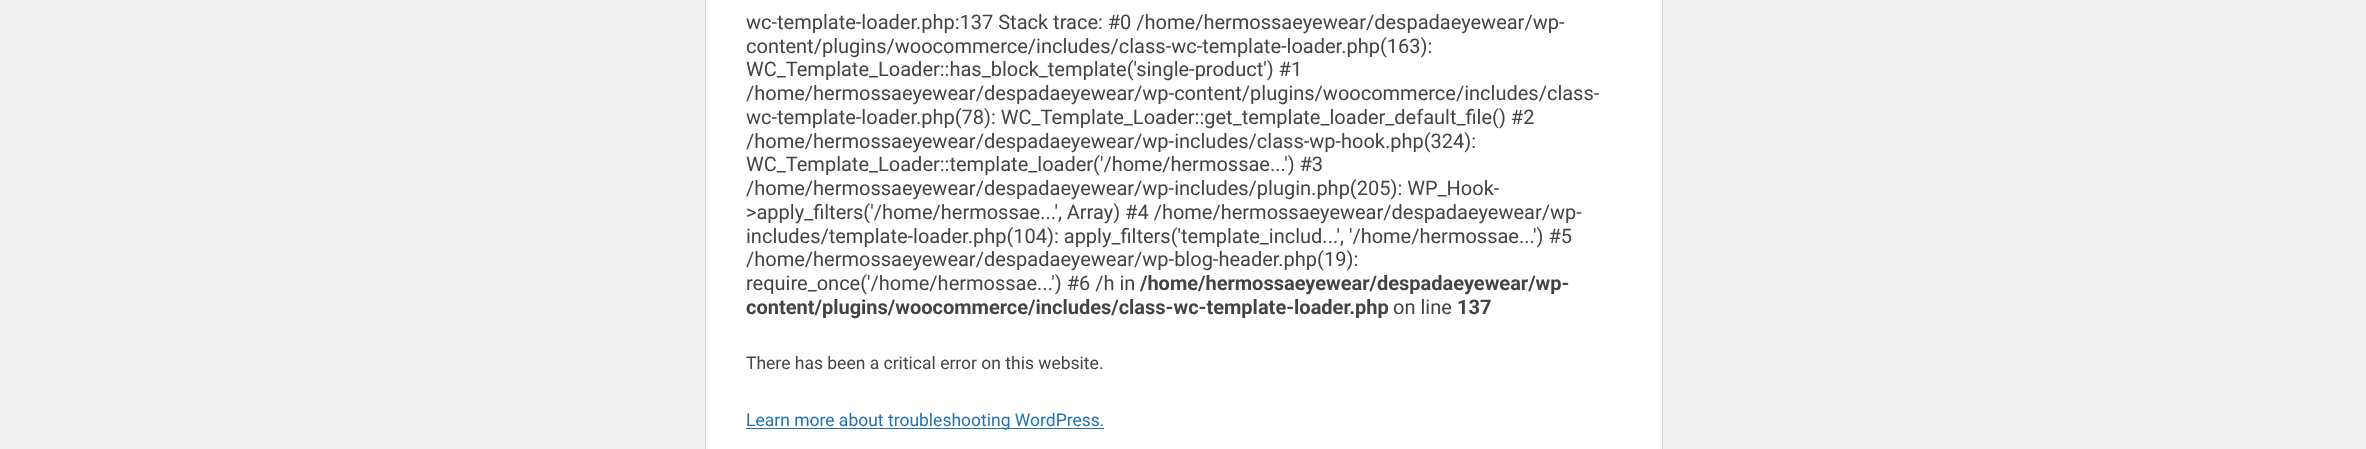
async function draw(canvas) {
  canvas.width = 2366
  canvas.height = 449
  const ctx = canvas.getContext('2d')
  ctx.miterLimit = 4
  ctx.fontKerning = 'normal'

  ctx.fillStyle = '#f1f1f1'
  ctx.fillRect(0, 0, 2366, 449)
  ctx.fillStyle = '#fff'
  ctx.beginPath()
  ctx.rect(705.5, -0.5, 957, 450)
  ctx.fill()
  ctx.strokeStyle = '#ccd0d4'
  ctx.stroke()
  ctx.font = '20px Roboto'
  ctx.fillStyle = '#444'
  ctx.fillText('wc-template-loader.php:137 Stack trace: #0 /home/hermossaeyewear/despadaeyewear/wp-', 746, 29)
  ctx.fillText('content/plugins/woocommerce/includes/class-wc-template-loader.php(163):', 746, 53)
  ctx.fillText('WC_Template_Loader::has_block_template(\'single-product\') #1', 746, 76)
  ctx.fillText('/home/hermossaeyewear/despadaeyewear/wp-content/plugins/woocommerce/includes/class-', 746, 100)
  ctx.fillText('wc-template-loader.php(78): WC_Template_Loader::get_template_loader_default_file() #2', 746, 124)
  ctx.fillText('/home/hermossaeyewear/despadaeyewear/wp-includes/class-wp-hook.php(324):', 746, 148)
  ctx.fillText('WC_Template_Loader::template_loader(\'/home/hermossae...\') #3', 746, 171)
  ctx.fillText('/home/hermossaeyewear/despadaeyewear/wp-includes/plugin.php(205): WP_Hook-', 746, 195)
  ctx.fillText('>apply_filters(\'/home/hermossae...\', Array) #4 /home/hermossaeyewear/despadaeyewear/wp-', 746, 219)
  ctx.fillText('includes/template-loader.php(104): apply_filters(\'template_includ...\', \'/home/hermossae...\') #5', 746, 243)
  ctx.fillText('/home/hermossaeyewear/despadaeyewear/wp-blog-header.php(19):', 746, 266)
  ctx.fillText('require_once(\'/home/hermossae...\') #6 /h in', 746, 290)
  ctx.font = 'bold 20px Roboto'
  ctx.fillText('/home/hermossaeyewear/despadaeyewear/wp-', 1140, 290)
  ctx.fillText('content/plugins/woocommerce/includes/class-wc-template-loader.php', 746, 314)
  ctx.font = '20px Roboto'
  ctx.fillText('on line', 1393, 314)
  ctx.font = 'bold 20px Roboto'
  ctx.fillText('137', 1457, 314)
  ctx.font = '17.5px Roboto'
  ctx.fillText('There has been a critical error on this website.', 746, 369)
  ctx.fillStyle = '#2271b1'
  ctx.fillRect(746, 428, 358, 1)
  ctx.fillText('Learn more about troubleshooting WordPress.', 746, 426)
}

draw(document.querySelector('canvas'))
